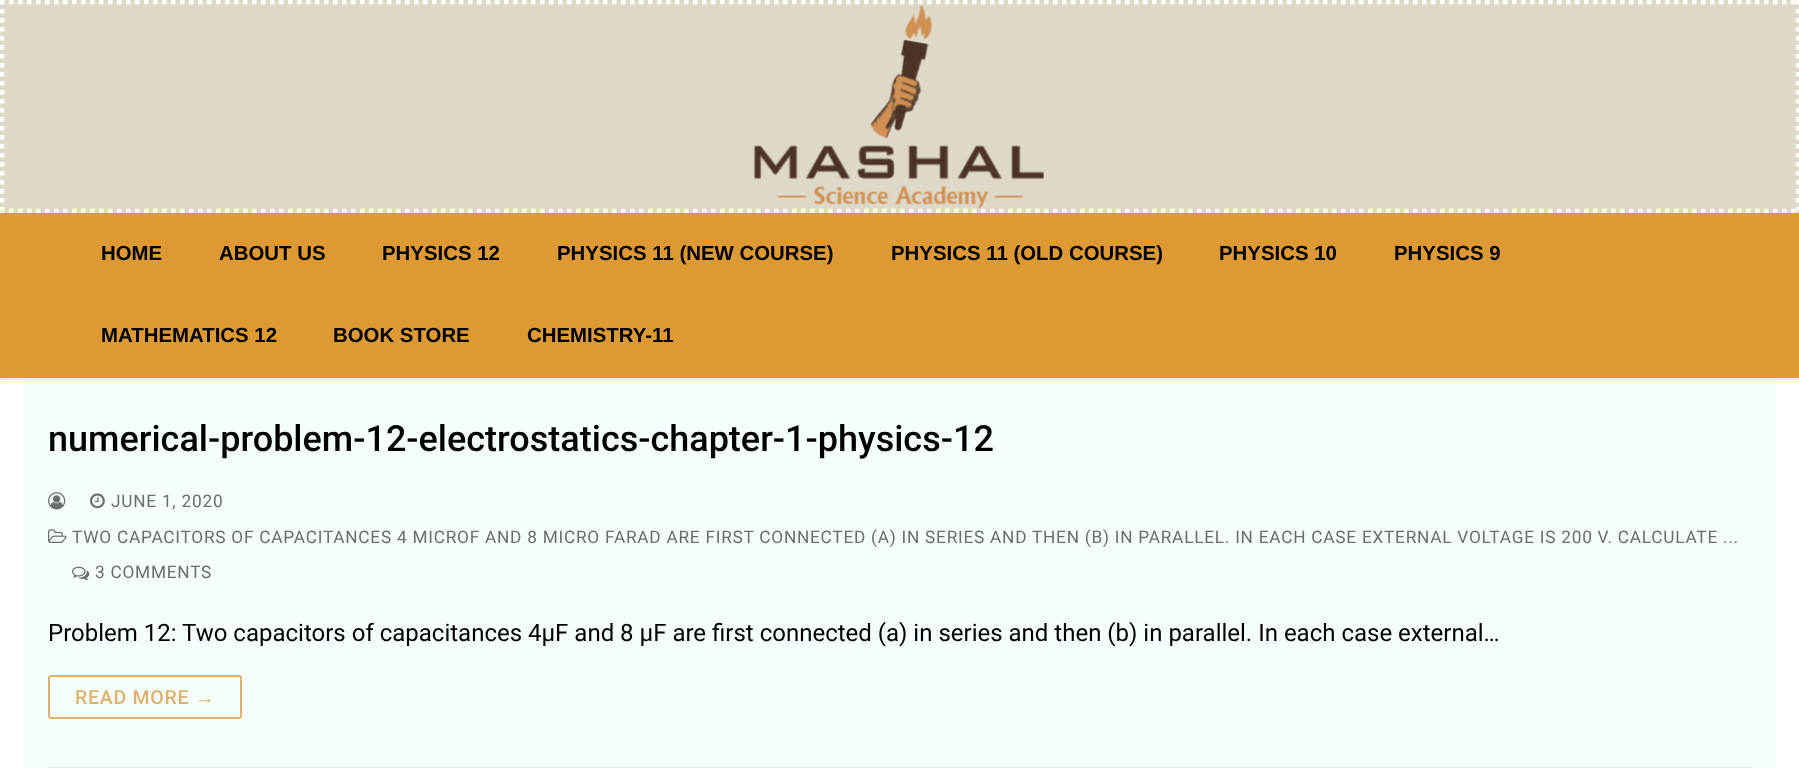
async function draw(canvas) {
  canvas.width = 1799
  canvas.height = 768
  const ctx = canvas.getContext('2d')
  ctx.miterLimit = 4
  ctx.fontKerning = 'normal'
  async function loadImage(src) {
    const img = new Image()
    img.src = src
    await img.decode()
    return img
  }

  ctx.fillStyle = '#fff'
  ctx.fillRect(0, 0, 1799, 768)
  ctx.fillStyle = '#ddd8c7'
  ctx.fillRect(0, 0, 1799, 213)
  ctx.beginPath()
  ctx.moveTo(0, 2)
  ctx.lineTo(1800, 2)
  ctx.strokeStyle = '#fffffe'
  ctx.lineWidth = 4.5
  ctx.setLineDash([4.5, 4.5])
  ctx.stroke()
  ctx.beginPath()
  ctx.moveTo(1798, 0)
  ctx.lineTo(1798, 213)
  ctx.stroke()
  ctx.beginPath()
  ctx.moveTo(0, 211)
  ctx.lineTo(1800, 211)
  ctx.strokeStyle = '#fffffffc'
  ctx.stroke()
  ctx.beginPath()
  ctx.moveTo(2, 0)
  ctx.lineTo(2, 213)
  ctx.stroke()
  ctx.drawImage(await loadImage('image0.png'), 753, 4, 291, 204)
  ctx.fillStyle = '#f5fffa'
  ctx.fillRect(24, 378, 1752, 390)
  ctx.fillStyle = '#e1e5ea'
  ctx.filter = 'blur(1.5px)'
  ctx.beginPath()
  ctx.rect(0, 215, 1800, 165)
  ctx.fill()
  ctx.filter = 'none'
  ctx.fillStyle = '#d93'
  ctx.fillRect(0, 213, 1799, 165)
  ctx.font = 'bold 20.4px Liberation Sans'
  ctx.fillStyle = '#000'
  ctx.fillText('HOME', 101, 260)
  ctx.fillText('ABOUT US', 219, 260)
  ctx.fillText('PHYSICS 12', 382, 260)
  ctx.fillText('PHYSICS 11 (NEW COURSE)', 557, 260)
  ctx.fillText('PHYSICS 11 (OLD COURSE)', 891, 260)
  ctx.fillText('PHYSICS 10', 1219, 260)
  ctx.fillText('PHYSICS 9', 1394, 260)
  ctx.fillText('MATHEMATICS 12', 101, 342)
  ctx.fillText('BOOK STORE', 333, 342)
  ctx.fillText('CHEMISTRY-11', 527, 342)
  ctx.fillStyle = '#eaecee'
  ctx.fillRect(48, 767, 1704, 1)
  ctx.font = '500 36px Roboto'
  ctx.fillStyle = '#000'
  ctx.fillText('numerical-problem-12-electrostatics-chapter-1-physics-12', 48, 451)
  ctx.drawImage(await loadImage('image1.png'), 48, 492, 18, 18)
  ctx.drawImage(await loadImage('image2.png'), 90, 493, 15, 16)
  ctx.letterSpacing = '0.75px'
  ctx.font = '17.28px Roboto'
  ctx.fillStyle = '#6d6d6d'
  ctx.fillText('JUNE 1, 2020', 111, 507)
  ctx.drawImage(await loadImage('image3.png'), 48, 529, 19, 14)
  ctx.fillText('TWO CAPACITORS OF CAPACITANCES 4 MICROF AND 8 MICRO FARAD ARE FIRST CONNECTED (A) IN SERIES AND THEN (B) IN PARALLEL. IN EACH CASE EXTERNAL VOLTAGE IS 200 V. CALCULATE ...', 72, 543)
  ctx.drawImage(await loadImage('image4.png'), 72, 566, 18, 15)
  ctx.fillText('3 COMMENTS', 95, 578)
  ctx.letterSpacing = '0px'
  ctx.font = '24px Roboto'
  ctx.fillStyle = '#000'
  ctx.fillText('Problem 12: Two capacitors of capacitances 4µF and 8 µF are first connected (a) in series and then (b) in parallel. In each case external…', 48, 641)
  ctx.beginPath()
  ctx.roundRect(49, 676, 192, 42, 2)
  ctx.strokeStyle = '#ddb16e'
  ctx.lineWidth = 2
  ctx.setLineDash([])
  ctx.stroke()
  ctx.letterSpacing = '0.75px'
  ctx.font = '500 19.5px Roboto'
  ctx.fillStyle = '#ddb16e'
  ctx.fillText('READ MORE', 75, 704)
  ctx.font = '19.5px Liberation Sans'
  ctx.fillText('→', 195, 704)
}

draw(document.querySelector('canvas'))
